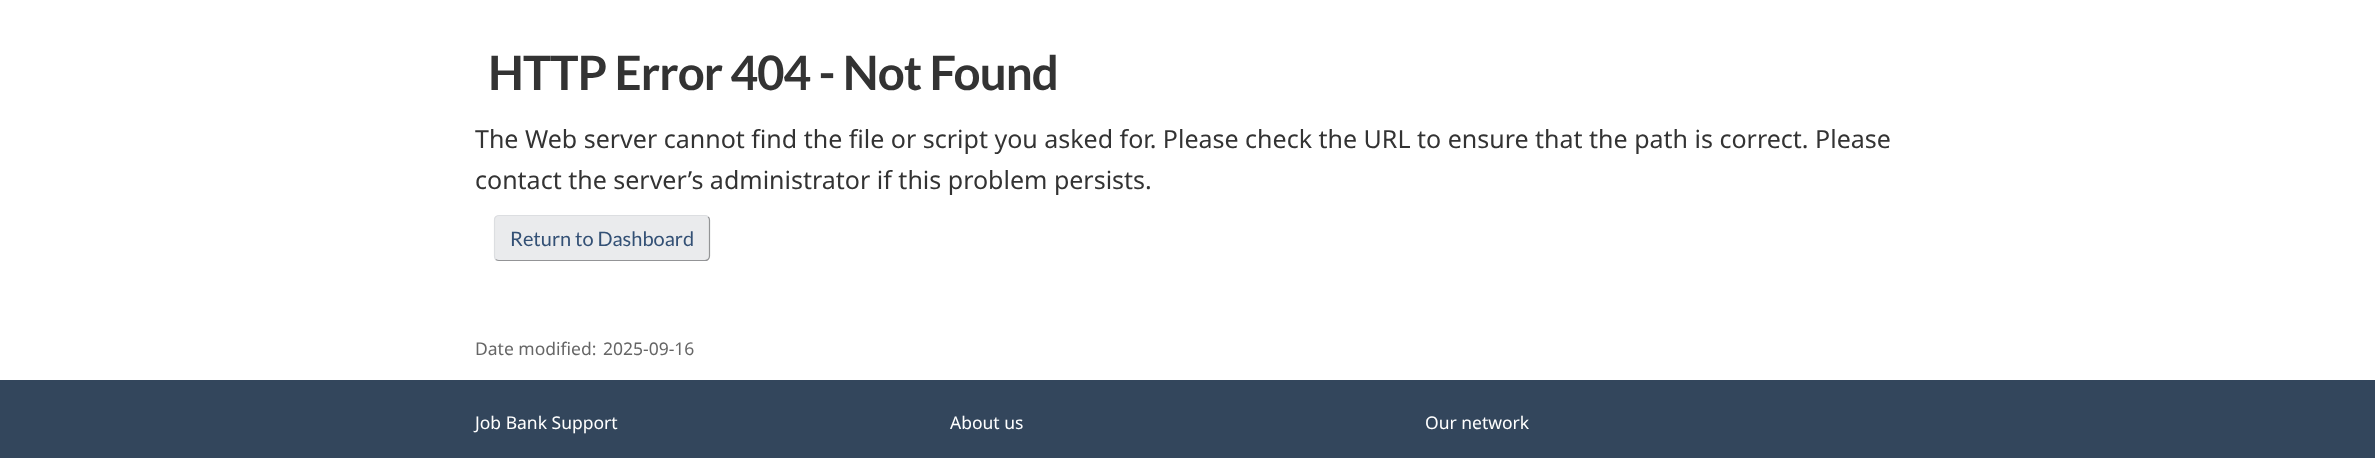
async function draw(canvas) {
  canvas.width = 2375
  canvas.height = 458
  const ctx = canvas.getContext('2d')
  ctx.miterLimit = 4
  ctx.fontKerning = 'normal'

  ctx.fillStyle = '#fff'
  ctx.fillRect(0, 0, 2375, 458)
  ctx.letterSpacing = '-0.95px'
  ctx.font = 'bold 47.5px Lato'
  ctx.fillStyle = '#333'
  ctx.fillText('HTTP Error 404 - Not Found', 488, 90)
  ctx.letterSpacing = '0px'
  ctx.font = '25px Noto Sans'
  ctx.fillText('The Web server cannot find the file or script you asked for. Please check the URL to ensure that the path is correct. Please', 475, 148)
  ctx.fillText('contact the server’s administrator if this problem persists.', 475, 189)
  ctx.fillStyle = '#eaebed'
  ctx.beginPath()
  ctx.roundRect(494, 215, 216, 46, 5)
  ctx.fill()
  ctx.beginPath()
  ctx.moveTo(708, 217)
  ctx.bezierCurveTo(709, 217.5, 709.5, 219, 709.5, 220)
  ctx.lineTo(709.5, 256)
  ctx.bezierCurveTo(709.5, 257.5, 709, 258.5, 708, 259.5)
  ctx.bezierCurveTo(707.5, 260, 706, 260.5, 705, 260.5)
  ctx.lineTo(499, 260.5)
  ctx.bezierCurveTo(497.5, 260.5, 496.5, 260, 495.5, 259.5)
  ctx.strokeStyle = '#939496'
  ctx.lineWidth = 1.2
  ctx.stroke()
  ctx.beginPath()
  ctx.moveTo(495.5, 259.5)
  ctx.bezierCurveTo(495, 258.5, 494.5, 257.5, 494.5, 256)
  ctx.lineTo(494.5, 220)
  ctx.bezierCurveTo(494.5, 219, 495, 217.5, 495.5, 217)
  ctx.bezierCurveTo(496.5, 216, 497.5, 215.5, 499, 215.5)
  ctx.lineTo(705, 215.5)
  ctx.bezierCurveTo(706, 215.5, 707.5, 216, 708, 217)
  ctx.strokeStyle = '#dcdee1'
  ctx.stroke()
  ctx.font = '20px Lato'
  ctx.fillStyle = '#335075'
  ctx.fillText('Return to Dashboard', 510, 246)
  ctx.font = '17.5px Noto Sans'
  ctx.fillStyle = '#666'
  ctx.fillText('Date modified:', 475, 355)
  ctx.fillText('2025-09-16', 603, 355)
  ctx.fillStyle = '#33465c'
  ctx.fillRect(0, 380, 2375, 78)
  ctx.fillStyle = '#fff'
  ctx.fillText('Job Bank Support', 475, 429)
  ctx.fillText('About us', 950, 429)
  ctx.fillText('Our network', 1425, 429)
}

draw(document.querySelector('canvas'))
